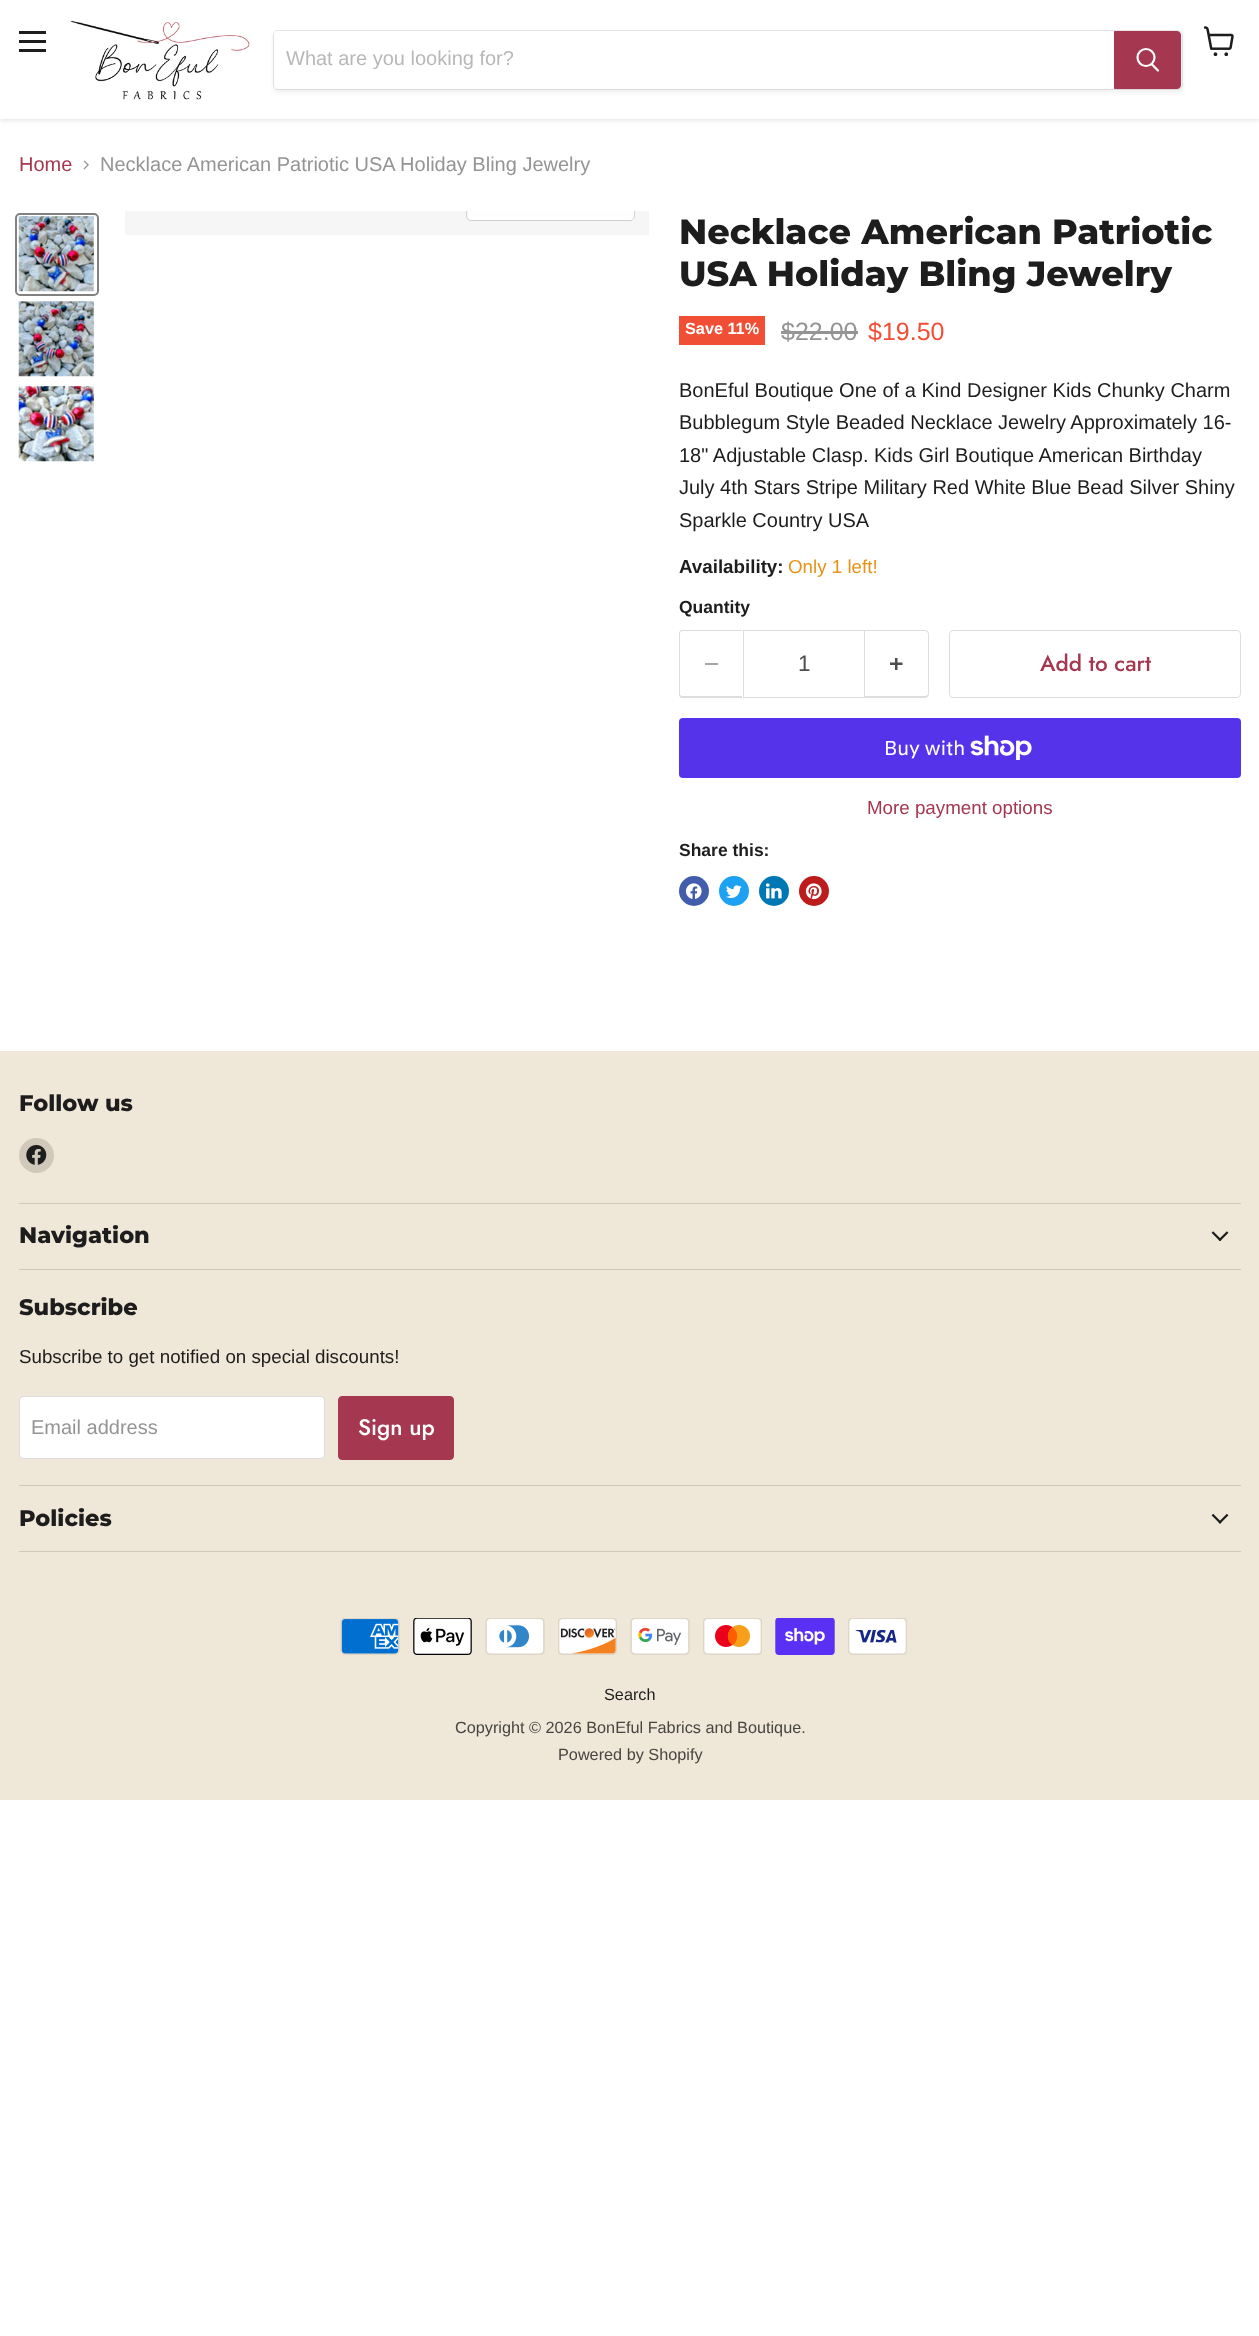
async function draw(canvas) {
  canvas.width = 1259
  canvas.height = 2336
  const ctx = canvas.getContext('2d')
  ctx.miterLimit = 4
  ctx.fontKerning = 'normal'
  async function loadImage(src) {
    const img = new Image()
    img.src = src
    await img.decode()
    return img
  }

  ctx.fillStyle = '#fff'
  ctx.fillRect(0, 0, 1259, 2336)
  ctx.fillStyle = '#80808040'
  ctx.filter = 'blur(2.5px)'
  ctx.beginPath()
  ctx.rect(0, 1, 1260, 119)
  ctx.fill()
  ctx.filter = 'none'
  ctx.fillStyle = '#fff'
  ctx.fillRect(0, 0, 1259, 119)
  ctx.fillStyle = '#1d1d1d'
  ctx.fillRect(19, 31, 27, 3)
  ctx.fillRect(19, 40, 27, 3)
  ctx.fillRect(19, 49, 27, 3)
  ctx.drawImage(await loadImage('image0.png'), 1204, 26, 30, 30)
  ctx.drawImage(await loadImage('image1.png'), 70, 20, 180, 80)
  ctx.fillStyle = '#8080801c'
  ctx.filter = 'blur(2px)'
  ctx.beginPath()
  ctx.roundRect(273, 33, 910, 60, 5)
  ctx.fill()
  ctx.filter = 'none'
  ctx.beginPath()
  ctx.roundRect(273.5, 30.5, 909, 59, 4.5)
  ctx.strokeStyle = '#80808033'
  ctx.stroke()
  ctx.fillStyle = '#fff'
  ctx.beginPath()
  ctx.roundRect(274, 31, 840, 58, [4, 0, 0, 4])
  ctx.fill()
  ctx.font = '20px Arimo'
  ctx.fillStyle = '#b8b8b8'
  ctx.fillText('What are you looking for?', 286, 65)
  ctx.fillStyle = '#a53850'
  ctx.beginPath()
  ctx.roundRect(1114.5, 31.5, 66, 57, [0, 3.5, 3.5, 0])
  ctx.fill()
  ctx.strokeStyle = '#a53850'
  ctx.stroke()
  ctx.beginPath()
  ctx.moveTo(1158, 70.5)
  ctx.lineTo(1152, 64.5)
  ctx.strokeStyle = '#fff'
  ctx.lineWidth = 2.2
  ctx.lineCap = 'round'
  ctx.stroke()
  ctx.beginPath()
  ctx.arc(1146, 57.5, 8.5, 0, 2 * Math.PI)
  ctx.stroke()
  ctx.fillText('Home', 19, 171)
  ctx.drawImage(await loadImage('image2.png'), 83, 160, 6, 10)
  ctx.fillStyle = '#949494'
  ctx.fillText('Necklace American Patriotic USA Holiday Bling Jewelry', 100, 171)
  ctx.beginPath()
  ctx.roundRect(16, 214, 82, 81, 4)
  ctx.strokeStyle = '#818181'
  ctx.lineWidth = 2
  ctx.stroke()
  ctx.drawImage(await loadImage('image3.png'), 18, 216, 76, 76)
  ctx.drawImage(await loadImage('image4.png'), 18, 301, 76, 76)
  ctx.drawImage(await loadImage('image5.png'), 18, 386, 76, 76)
  ctx.fillStyle = '#f6f6f6'
  ctx.fillRect(125, 211, 524, 24)
  ctx.save()
  ctx.beginPath()
  ctx.rect(125, 211, 524, 24)
  ctx.clip()
  ctx.beginPath()
  ctx.roundRect(466.5, 184.5, 168, 36, 4.5)
  ctx.strokeStyle = '#d1d1d1'
  ctx.lineWidth = 1
  ctx.stroke()
  ctx.restore()
  ctx.fillStyle = '#ffffffe6'
  ctx.beginPath()
  ctx.roundRect(468, 211, 166, 9, [0, 0, 4, 4])
  ctx.fill()
  ctx.font = '800 35px Montserrat'
  ctx.fillStyle = '#1d1d1d'
  ctx.fillText('Necklace American Patriotic', 679, 244)
  ctx.fillText('USA Holiday Bling Jewelry', 679, 286)
  ctx.fillStyle = '#f04f36'
  ctx.fillRect(679, 316, 86, 29)
  ctx.font = 'bold 16.25px Arimo'
  ctx.fillStyle = '#fff'
  ctx.fillText('Save 11%', 685, 334)
  ctx.font = '25px Arimo'
  ctx.fillStyle = '#949494'
  ctx.fillText('$22.00', 781, 340)
  ctx.fillRect(781, 331, 77, 3)
  ctx.fillStyle = '#f04f36'
  ctx.fillText('$19.50', 868, 340)
  ctx.font = '20px Arimo'
  ctx.fillStyle = '#1d1d1d'
  ctx.fillText('BonEful Boutique One of a Kind Designer Kids Chunky Charm', 679, 397)
  ctx.fillText('Bubblegum Style Beaded Necklace Jewelry Approximately 16-', 679, 429)
  ctx.fillText('18" Adjustable Clasp. Kids Girl Boutique American Birthday', 679, 462)
  ctx.fillText('July 4th Stars Stripe Military Red White Blue Bead Silver Shiny', 679, 494)
  ctx.fillText('Sparkle Country USA', 679, 527)
  ctx.font = 'bold 18.75px Arimo'
  ctx.fillText('Availability:', 679, 573)
  ctx.font = '18.75px Arimo'
  ctx.fillStyle = '#e99114'
  ctx.fillText('Only 1 left!', 788, 573)
  ctx.font = 'bold 17.5px Arimo'
  ctx.fillStyle = '#1d1d1d'
  ctx.fillText('Quantity', 679, 613)
  ctx.fillStyle = '#ddd'
  ctx.beginPath()
  ctx.moveTo(682, 630)
  ctx.lineTo(742, 630)
  ctx.lineTo(742, 698)
  ctx.lineTo(682, 698)
  ctx.bezierCurveTo(680, 698, 679, 696, 679, 694)
  ctx.lineTo(679, 634)
  ctx.bezierCurveTo(679, 632, 680, 630, 682, 630)
  ctx.closePath()
  ctx.moveTo(682, 631)
  ctx.lineTo(742, 631)
  ctx.lineTo(742, 696)
  ctx.lineTo(682, 696)
  ctx.bezierCurveTo(681, 696, 680, 695, 680, 694)
  ctx.lineTo(680, 634)
  ctx.bezierCurveTo(680, 632, 681, 631, 682, 631)
  ctx.closePath()
  ctx.fill('evenodd')
  ctx.fillStyle = '#a6a6a6'
  ctx.fillRect(705, 663, 13, 2)
  ctx.strokeStyle = '#ddd'
  ctx.lineWidth = 1
  ctx.strokeRect(743.5, 630.5, 121, 67)
  ctx.font = '22.5px Arimo'
  ctx.fillStyle = '#4d4d4d'
  ctx.fillText('1', 798, 671)
  ctx.fillStyle = '#ddd'
  ctx.beginPath()
  ctx.moveTo(865, 630)
  ctx.lineTo(925, 630)
  ctx.bezierCurveTo(927, 630, 929, 632, 929, 634)
  ctx.lineTo(929, 694)
  ctx.bezierCurveTo(929, 696, 927, 698, 925, 698)
  ctx.lineTo(865, 698)
  ctx.closePath()
  ctx.moveTo(865, 631)
  ctx.lineTo(925, 631)
  ctx.bezierCurveTo(926, 631, 928, 632, 928, 634)
  ctx.lineTo(928, 694)
  ctx.bezierCurveTo(928, 695, 926, 696, 925, 696)
  ctx.lineTo(865, 696)
  ctx.closePath()
  ctx.fill('evenodd')
  ctx.drawImage(await loadImage('image6.png'), 890, 658, 13, 12)
  ctx.beginPath()
  ctx.roundRect(949.5, 630.5, 291, 67, 3.5)
  ctx.stroke()
  ctx.font = '500 22.5px Jost'
  ctx.fillStyle = '#a53850'
  ctx.fillText('Add to cart', 1040, 671)
  ctx.fillStyle = '#5433eb'
  ctx.beginPath()
  ctx.roundRect(679, 718, 562, 60, 4)
  ctx.fill()
  ctx.font = '20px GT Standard'
  ctx.fillStyle = '#fff'
  ctx.fillText('Buy with', 884, 755)
  ctx.drawImage(await loadImage('image7.png'), 970, 735, 62, 25)
  ctx.font = '18.75px Arimo'
  ctx.fillStyle = '#a53850'
  ctx.fillText('More payment options', 867, 814)
  ctx.font = 'bold 17.5px Arimo'
  ctx.fillStyle = '#1d1d1d'
  ctx.fillText('Share this:', 679, 856)
  ctx.fillStyle = '#425dab'
  ctx.beginPath()
  ctx.arc(694, 891, 15, 0, 2 * Math.PI)
  ctx.fill()
  ctx.drawImage(await loadImage('image8.png'), 685, 883, 17, 16)
  ctx.fillStyle = '#1da1f2'
  ctx.beginPath()
  ctx.arc(734, 891, 15, 0, 2 * Math.PI)
  ctx.fill()
  ctx.drawImage(await loadImage('image9.png'), 726, 885, 16, 13)
  ctx.fillStyle = '#0077b5'
  ctx.beginPath()
  ctx.arc(774, 891, 15, 0, 2 * Math.PI)
  ctx.fill()
  ctx.drawImage(await loadImage('image10.png'), 765, 883, 17, 16)
  ctx.fillStyle = '#bd1c1c'
  ctx.beginPath()
  ctx.arc(814, 891, 15, 0, 2 * Math.PI)
  ctx.fill()
  ctx.drawImage(await loadImage('image11.png'), 805, 883, 17, 17)
  ctx.fillStyle = '#efe7d7'
  ctx.fillRect(0, 1051, 1259, 749)
  ctx.fillStyle = '#d0c9bb'
  ctx.fillRect(19, 1203, 1222, 1)
  ctx.font = '800 22.5px Montserrat'
  ctx.fillStyle = '#1d1d1d'
  ctx.fillText('Follow us', 19, 1111)
  ctx.fillStyle = '#d0c9bb'
  ctx.beginPath()
  ctx.arc(36.5, 1155.5, 17.5, 0, 2 * Math.PI)
  ctx.fill()
  ctx.drawImage(await loadImage('image12.png'), 26, 1145, 21, 20)
  ctx.fillRect(19, 1269, 1222, 1)
  ctx.fillStyle = '#1d1d1d'
  ctx.fillText('Navigation', 19, 1243)
  ctx.drawImage(await loadImage('image13.png'), 1211, 1231, 18, 10)
  ctx.fillStyle = '#d0c9bb'
  ctx.fillRect(19, 1485, 1222, 1)
  ctx.fillStyle = '#1d1d1d'
  ctx.fillText('Subscribe', 19, 1315)
  ctx.font = '18.75px Arimo'
  ctx.fillText('Subscribe to get notified on special discounts!', 19, 1363)
  ctx.fillStyle = '#fff'
  ctx.beginPath()
  ctx.roundRect(19.5, 1396.5, 305, 62, 3.5)
  ctx.fill()
  ctx.stroke()
  ctx.font = '20px Arimo'
  ctx.fillStyle = '#949494'
  ctx.fillText('Email address', 31, 1434)
  ctx.fillStyle = '#a53850'
  ctx.beginPath()
  ctx.roundRect(338.5, 1396.5, 115, 63, 3.5)
  ctx.fill()
  ctx.strokeStyle = '#a53850'
  ctx.stroke()
  ctx.font = '500 22.5px Jost'
  ctx.fillStyle = '#fff'
  ctx.fillText('Sign up', 358, 1435)
  ctx.fillStyle = '#d0c9bb'
  ctx.fillRect(19, 1551, 1222, 1)
  ctx.font = '800 22.5px Montserrat'
  ctx.fillStyle = '#1d1d1d'
  ctx.fillText('Policies', 19, 1526)
  ctx.drawImage(await loadImage('image14.png'), 1211, 1514, 18, 10)
  ctx.drawImage(await loadImage('image15.png'), 340, 1618, 60, 37)
  ctx.drawImage(await loadImage('image16.png'), 413, 1618, 59, 37)
  ctx.drawImage(await loadImage('image17.png'), 485, 1618, 60, 37)
  ctx.drawImage(await loadImage('image18.png'), 558, 1618, 59, 37)
  ctx.drawImage(await loadImage('image19.png'), 630, 1618, 60, 37)
  ctx.drawImage(await loadImage('image20.png'), 703, 1618, 59, 37)
  ctx.drawImage(await loadImage('image21.png'), 775, 1618, 60, 37)
  ctx.drawImage(await loadImage('image22.png'), 848, 1618, 59, 37)
  ctx.font = '16.25px Arimo'
  ctx.fillText('Search', 604, 1700)
  ctx.fillStyle = '#474542'
  ctx.fillText('Copyright © 2026 BonEful Fabrics and Boutique.', 455, 1733)
  ctx.fillText('Powered by Shopify', 558, 1760)
}

draw(document.querySelector('canvas'))
